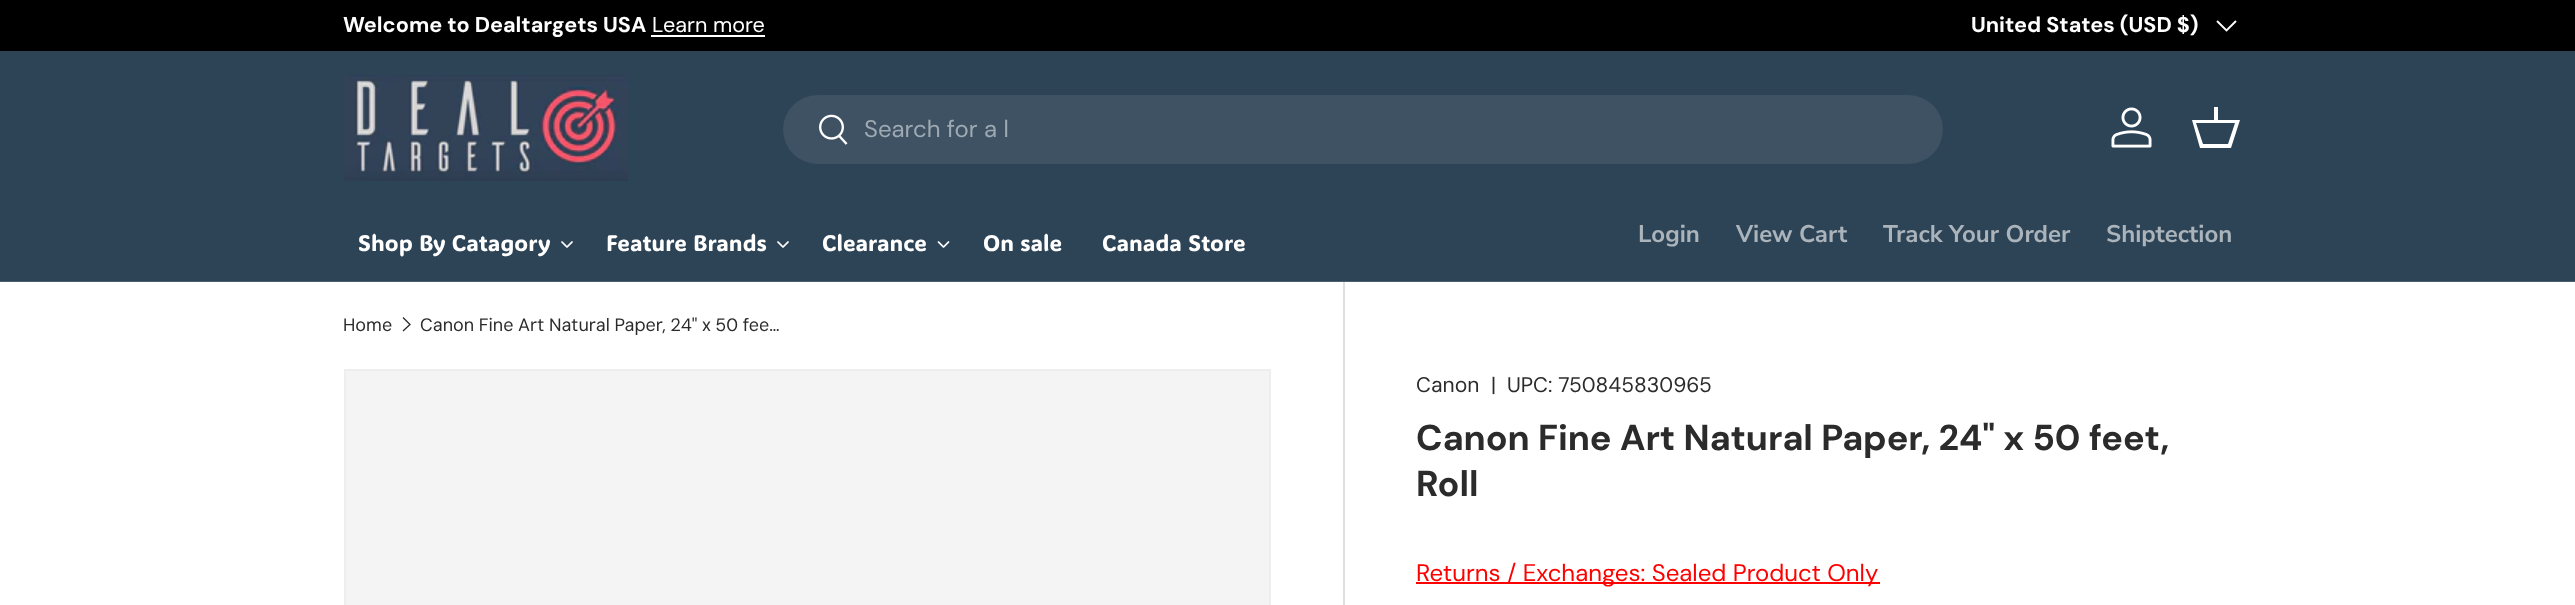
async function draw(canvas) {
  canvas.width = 2575
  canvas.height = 605
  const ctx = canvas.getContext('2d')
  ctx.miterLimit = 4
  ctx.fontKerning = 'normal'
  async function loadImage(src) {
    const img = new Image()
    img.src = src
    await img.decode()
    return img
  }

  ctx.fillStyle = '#fff'
  ctx.fillRect(0, 0, 2575, 605)
  ctx.fillStyle = '#000'
  ctx.fillRect(0, 0, 2575, 51)
  ctx.font = 'bold 21.6px "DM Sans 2"'
  ctx.fillStyle = '#fff'
  ctx.fillText('Welcome to Dealtargets USA', 343, 32)
  ctx.font = '21.6px "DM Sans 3"'
  ctx.fillText('Learn more', 652, 32)
  ctx.fillRect(651, 35, 114, 2)
  ctx.font = 'bold 21.6px "DM Sans 2"'
  ctx.fillText('United States (USD $)', 1971, 32)
  ctx.beginPath()
  ctx.moveTo(2236, 21)
  ctx.lineTo(2226.5, 30.5)
  ctx.lineTo(2217, 21)
  ctx.strokeStyle = '#fff'
  ctx.lineWidth = 1.9
  ctx.stroke()
  ctx.fillStyle = '#2d4356'
  ctx.fillRect(0, 51, 2575, 230)
  ctx.fillStyle = '#4d5f6f'
  ctx.fillRect(0, 281, 2575, 1)
  ctx.drawImage(await loadImage('image0.png'), 344, 75, 284, 106)
  ctx.fillStyle = '#3e5264'
  ctx.beginPath()
  ctx.roundRect(783, 95, 1160, 69, 34.5)
  ctx.fill()
  ctx.drawImage(await loadImage('image1.png'), 819, 114, 29, 31)
  ctx.font = '24px "DM Sans 2"'
  ctx.fillStyle = '#9fa9b2'
  ctx.fillText('Search for a l', 864, 137)
  ctx.drawImage(await loadImage('image2.png'), 2111, 107, 41, 41)
  ctx.fillStyle = '#fff'
  ctx.beginPath()
  ctx.moveTo(2214, 120)
  ctx.lineTo(2214, 107)
  ctx.lineTo(2218, 107)
  ctx.lineTo(2218, 120)
  ctx.lineTo(2240, 120)
  ctx.lineTo(2231, 148)
  ctx.lineTo(2200, 148)
  ctx.lineTo(2192, 120)
  ctx.closePath()
  ctx.moveTo(2196, 123)
  ctx.lineTo(2203, 144)
  ctx.lineTo(2228, 144)
  ctx.lineTo(2235, 123)
  ctx.closePath()
  ctx.fill()
  ctx.font = '22.5px ADLaM Display'
  ctx.fillText('Shop By Catagory', 358, 251)
  ctx.drawImage(await loadImage('image3.png'), 561, 241, 12, 7)
  ctx.fillText('Feature Brands', 606, 251)
  ctx.drawImage(await loadImage('image3.png'), 777, 241, 12, 7)
  ctx.fillText('Clearance', 822, 251)
  ctx.drawImage(await loadImage('image4.png'), 937, 241, 13, 7)
  ctx.fillText('On sale', 983, 251)
  ctx.fillText('Canada Store', 1102, 251)
  ctx.font = 'bold 24px Nunito Sans'
  ctx.fillStyle = '#abb4bb'
  ctx.fillText('Login', 1638, 242)
  ctx.fillText('View Cart', 1736, 242)
  ctx.fillText('Track Your Order', 1883, 242)
  ctx.fillText('Shiptection', 2106, 242)
  ctx.font = '18px DM Sans'
  ctx.fillStyle = '#2a2b2a'
  ctx.fillText('Home', 343, 331)
  ctx.beginPath()
  ctx.moveTo(403, 317.5)
  ctx.lineTo(410, 324.5)
  ctx.lineTo(403, 331)
  ctx.strokeStyle = '#2a2b2a'
  ctx.lineWidth = 1.3
  ctx.stroke()
  ctx.wordSpacing = '-0.25px'
  ctx.fillText('Canon Fine Art Natural Paper, 24" x 50 fee…', 420, 331)
  ctx.fillStyle = '#f4f4f4'
  ctx.beginPath()
  ctx.rect(345, 370, 925, 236)
  ctx.fill()
  ctx.strokeStyle = '#eee'
  ctx.lineWidth = 2
  ctx.stroke()
  ctx.fillStyle = '#dfdfdf'
  ctx.fillRect(1343, 282, 2, 323)
  ctx.fillStyle = '#e4e4e4'
  ctx.fillRect(1343, 282, 2, 1)
  ctx.wordSpacing = '0px'
  ctx.font = '21.1px DM Sans'
  ctx.fillStyle = '#2a2b2a'
  ctx.fillText('Canon', 1416, 392)
  ctx.fillText('|', 1491, 392)
  ctx.fillText('UPC: 750845830965', 1507, 392)
  ctx.font = 'bold 36px DM Sans'
  ctx.fillText('Canon Fine Art Natural Paper, 24" x 50 feet,', 1416, 450)
  ctx.fillText('Roll', 1416, 496)
  ctx.fillStyle = '#f00'
  ctx.fillRect(1416, 582, 464, 2)
  ctx.font = '24px "DM Sans 2"'
  ctx.fillText('Returns / Exchanges: Sealed Product Only', 1416, 581)
}

draw(document.querySelector('canvas'))
